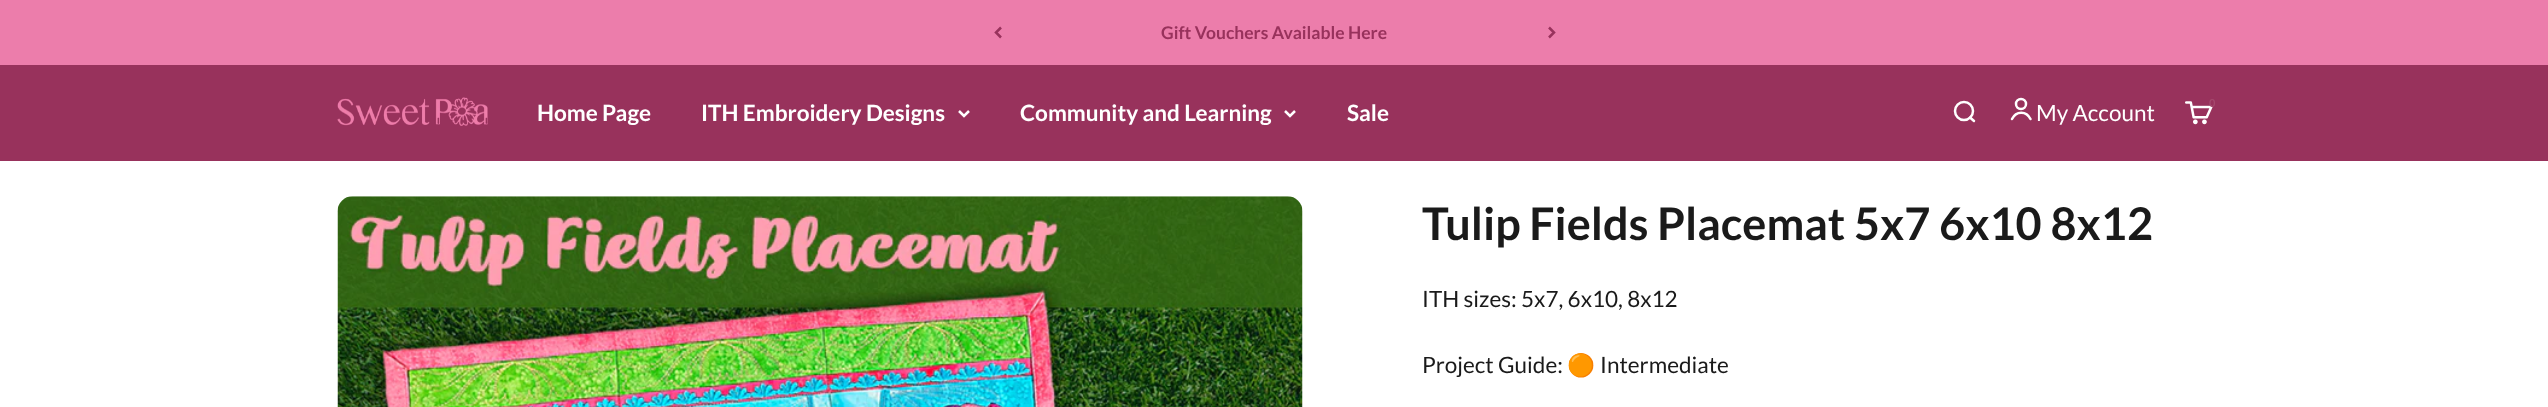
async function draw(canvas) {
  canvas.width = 2548
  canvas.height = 407
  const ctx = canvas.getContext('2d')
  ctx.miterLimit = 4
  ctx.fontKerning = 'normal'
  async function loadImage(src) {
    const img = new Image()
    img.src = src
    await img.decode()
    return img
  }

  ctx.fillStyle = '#fff'
  ctx.fillRect(0, 0, 2548, 407)
  ctx.fillStyle = '#ec7dab'
  ctx.fillRect(0, 0, 2548, 65)
  ctx.beginPath()
  ctx.moveTo(1001, 27.5)
  ctx.lineTo(996, 32.5)
  ctx.lineTo(1001, 37.5)
  ctx.strokeStyle = '#98325c'
  ctx.lineWidth = 2.5
  ctx.stroke()
  ctx.font = 'bold 17.5px Lato'
  ctx.fillStyle = '#98325c'
  ctx.fillText('Gift Vouchers Available Here', 1161, 39)
  ctx.beginPath()
  ctx.moveTo(1549, 37.5)
  ctx.lineTo(1554, 32.5)
  ctx.lineTo(1549, 27.5)
  ctx.stroke()
  ctx.fillRect(0, 65, 2548, 96)
  ctx.drawImage(await loadImage('image0.png'), 337, 97, 151, 29)
  ctx.font = 'bold 22.5px Lato'
  ctx.fillStyle = '#fff'
  ctx.fillText('Home Page', 537, 121)
  ctx.fillText('ITH Embroidery Designs', 701, 121)
  ctx.beginPath()
  ctx.moveTo(959, 111)
  ctx.lineTo(964, 116)
  ctx.lineTo(969, 111)
  ctx.strokeStyle = '#fff'
  ctx.stroke()
  ctx.fillText('Community and Learning', 1020, 121)
  ctx.beginPath()
  ctx.moveTo(1285, 111)
  ctx.lineTo(1290, 116)
  ctx.lineTo(1295, 111)
  ctx.stroke()
  ctx.fillText('Sale', 1347, 121)
  ctx.beginPath()
  ctx.arc(1964, 111, 9, 0, 2 * Math.PI)
  ctx.stroke()
  ctx.beginPath()
  ctx.moveTo(1970, 117.5)
  ctx.lineTo(1974, 121)
  ctx.lineCap = 'round'
  ctx.lineJoin = 'round'
  ctx.stroke()
  ctx.beginPath()
  ctx.arc(2021, 104, 5, 0, 2 * Math.PI)
  ctx.stroke()
  ctx.beginPath()
  ctx.moveTo(2012, 119)
  ctx.bezierCurveTo(2016, 110.5, 2026.5, 110.5, 2030.5, 119)
  ctx.lineJoin = 'miter'
  ctx.stroke()
  ctx.font = '22.5px Lato'
  ctx.fillText('My Account', 2036, 121)
  ctx.drawImage(await loadImage('image1.png'), 2185, 101, 28, 24)
  ctx.font = 'bold 11px Lato'
  ctx.fillStyle = '#a4496e'
  ctx.fillText('0', 2209, 107)
  ctx.drawImage(await loadImage('image2.png'), 337, 196, 966, 211)
  ctx.font = 'bold 45px Lato'
  ctx.fillStyle = '#1a1a1a'
  ctx.fillText('Tulip Fields Placemat 5x7 6x10 8x12', 1422, 240)
  ctx.font = '22.5px Lato'
  ctx.fillText('ITH sizes: 5x7, 6x10, 8x12', 1422, 307)
  ctx.fillText('Project Guide:', 1422, 373)
  ctx.font = '22.5px Noto Color Emoji'
  ctx.fillText('🟠', 1567, 373)
  ctx.font = '22.5px Lato'
  ctx.fillText('Intermediate', 1600, 373)
}

draw(document.querySelector('canvas'))
